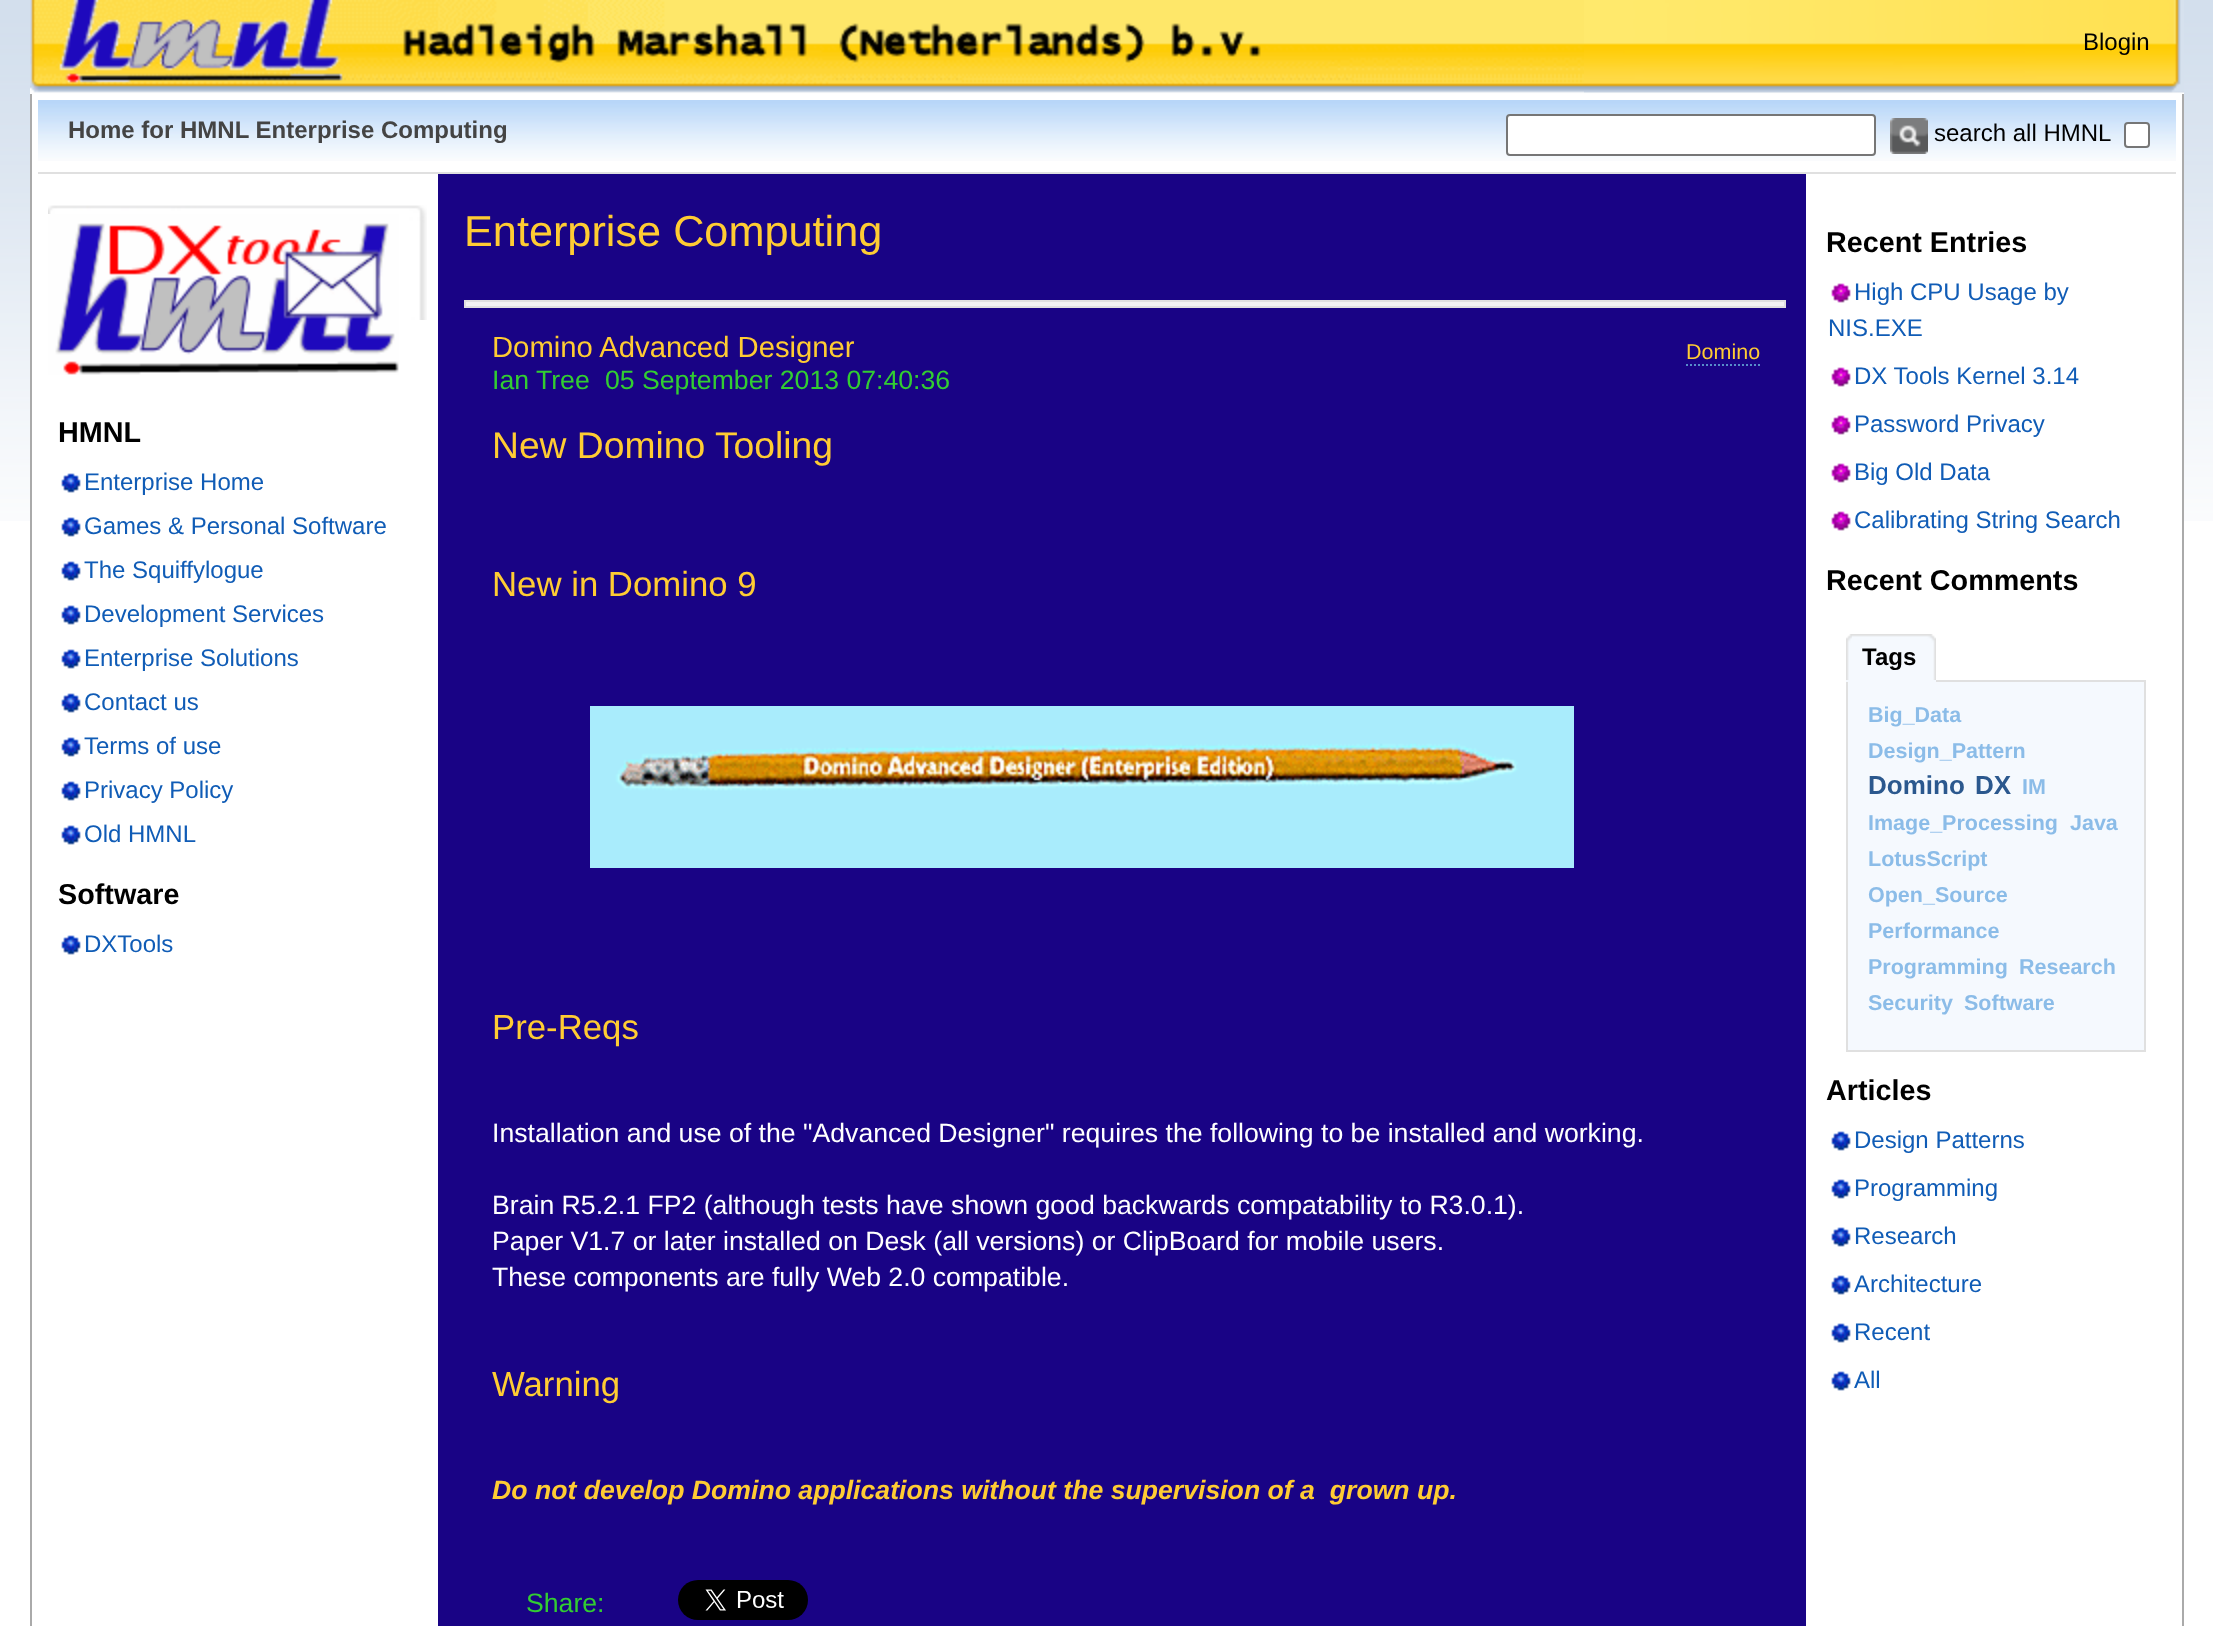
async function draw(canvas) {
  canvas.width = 2213
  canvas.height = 1626
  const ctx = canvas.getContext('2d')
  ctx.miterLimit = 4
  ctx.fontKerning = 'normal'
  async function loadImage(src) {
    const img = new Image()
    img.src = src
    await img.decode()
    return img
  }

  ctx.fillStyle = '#fff'
  ctx.fillRect(0, 0, 2213, 1626)
  ctx.drawImage(await loadImage('image0.png'), 0, 0, 2213, 521)
  ctx.drawImage(await loadImage('image1.png'), 30, 0, 2154, 94)
  ctx.drawImage(await loadImage('image2.png'), 1584, 0, 600, 93)
  ctx.font = '24px Liberation Sans'
  ctx.fillStyle = '#000'
  ctx.fillText('Blogin', 2083, 50)
  ctx.fillStyle = '#fff'
  ctx.fillRect(32, 94, 2150, 427)
  ctx.fillStyle = '#aaa'
  ctx.fillRect(2182, 94, 2, 1532)
  ctx.fillRect(30, 94, 2, 1532)
  ctx.drawImage(await loadImage('image3.png'), 38, 100, 2138, 61)
  ctx.fillStyle = '#e0e0e0'
  ctx.fillRect(38, 172, 2138, 2)
  ctx.font = 'bold 24px Liberation Sans'
  ctx.fillStyle = '#444'
  ctx.fillText('Home for HMNL Enterprise Computing', 68, 138)
  ctx.fillStyle = '#fff'
  ctx.beginPath()
  ctx.roundRect(1507, 115, 368, 40, 3)
  ctx.fill()
  ctx.strokeStyle = '#767676'
  ctx.lineWidth = 2
  ctx.stroke()
  ctx.drawImage(await loadImage('image4.png'), 1890, 118, 38, 36)
  ctx.font = '24px Liberation Sans'
  ctx.fillStyle = '#000'
  ctx.fillText('search all HMNL', 1934, 141)
  ctx.fillStyle = '#fff'
  ctx.beginPath()
  ctx.roundRect(2125, 123, 24, 24, 3)
  ctx.fill()
  ctx.stroke()
  ctx.drawImage(await loadImage('image5.png'), 48, 205, 379, 115)
  ctx.drawImage(await loadImage('image6.png'), 48, 214, 351, 161)
  ctx.font = 'bold 28.75px Liberation Sans'
  ctx.fillStyle = '#000'
  ctx.fillText('HMNL', 58, 442)
  ctx.drawImage(await loadImage('image7.png'), 61, 473, 20, 20)
  ctx.font = '24px Liberation Sans'
  ctx.fillStyle = '#105cb6'
  ctx.fillText('Enterprise Home', 84, 490)
  ctx.drawImage(await loadImage('image7.png'), 61, 517, 20, 20)
  ctx.fillText('Games & Personal Software', 84, 534)
  ctx.drawImage(await loadImage('image7.png'), 61, 561, 20, 20)
  ctx.fillText('The Squiffylogue', 84, 578)
  ctx.drawImage(await loadImage('image7.png'), 61, 605, 20, 20)
  ctx.fillText('Development Services', 84, 622)
  ctx.drawImage(await loadImage('image7.png'), 61, 649, 20, 20)
  ctx.fillText('Enterprise Solutions', 84, 666)
  ctx.drawImage(await loadImage('image7.png'), 61, 693, 20, 20)
  ctx.fillText('Contact us', 84, 710)
  ctx.drawImage(await loadImage('image7.png'), 61, 737, 20, 20)
  ctx.fillText('Terms of use', 84, 754)
  ctx.drawImage(await loadImage('image7.png'), 61, 781, 20, 20)
  ctx.fillText('Privacy Policy', 84, 798)
  ctx.drawImage(await loadImage('image7.png'), 61, 825, 20, 20)
  ctx.fillText('Old HMNL', 84, 842)
  ctx.font = 'bold 28.75px Liberation Sans'
  ctx.fillStyle = '#000'
  ctx.fillText('Software', 58, 904)
  ctx.drawImage(await loadImage('image7.png'), 61, 935, 20, 20)
  ctx.font = '24px Liberation Sans'
  ctx.fillStyle = '#105cb6'
  ctx.fillText('DXTools', 84, 952)
  ctx.fillStyle = '#190385'
  ctx.fillRect(438, 174, 1368, 1452)
  ctx.font = '43.25px Liberation Sans'
  ctx.fillStyle = '#fc3'
  ctx.fillText('Enterprise Computing', 464, 246)
  ctx.fillStyle = '#f3f3f3'
  ctx.beginPath()
  ctx.rect(465, 301, 1320, 6)
  ctx.fill()
  ctx.strokeStyle = '#e0e0e0'
  ctx.stroke()
  ctx.font = '29.25px Liberation Sans'
  ctx.fillStyle = '#fc3'
  ctx.fillText('Domino Advanced Designer', 492, 357)
  ctx.font = '26.65px Liberation Sans'
  ctx.fillStyle = '#32cd32'
  ctx.fillText('Ian Tree', 492, 389)
  ctx.fillText('05 September 2013 07:40:36', 605, 389)
  ctx.font = '37.25px Liberation Sans'
  ctx.fillStyle = '#fc3'
  ctx.fillText('New Domino Tooling', 492, 458)
  ctx.font = '34.75px Liberation Sans'
  ctx.fillText('New in Domino 9', 492, 596)
  ctx.drawImage(await loadImage('image8.png'), 590, 706, 984, 162)
  ctx.fillText('Pre-Reqs', 492, 1039)
  ctx.font = '26.65px Liberation Sans'
  ctx.fillStyle = '#fff'
  ctx.fillText('Installation and use of the "Advanced Designer" requires the following to be installed and working.', 492, 1142)
  ctx.fillText('Brain R5.2.1 FP2 (although tests have shown good backwards compatability to R3.0.1).', 492, 1214)
  ctx.fillText('Paper V1.7 or later installed on Desk (all versions) or ClipBoard for mobile users.', 492, 1250)
  ctx.fillText('These components are fully Web 2.0 compatible.', 492, 1286)
  ctx.font = '34.75px Liberation Sans'
  ctx.fillStyle = '#fc3'
  ctx.fillText('Warning', 492, 1396)
  ctx.font = 'italic bold 26.65px Liberation Sans'
  ctx.fillText('Do not develop Domino applications without the supervision of a  grown up.', 492, 1499)
  ctx.font = '26.65px Liberation Sans'
  ctx.fillStyle = '#32cd32'
  ctx.fillText('Share:', 526, 1612)
  ctx.drawImage(await loadImage('image9.png'), 678, 1580, 130, 40)
  ctx.font = '21.5px Liberation Sans'
  ctx.fillStyle = '#fc3'
  ctx.fillText('Domino', 1686, 359)
  ctx.beginPath()
  ctx.moveTo(1686, 365)
  ctx.lineTo(1760, 365)
  ctx.strokeStyle = '#578cca'
  ctx.setLineDash([2, 2])
  ctx.stroke()
  ctx.font = 'bold 28.75px Liberation Sans'
  ctx.fillStyle = '#000'
  ctx.fillText('Recent Entries', 1826, 252)
  ctx.drawImage(await loadImage('image10.png'), 1831, 283, 20, 20)
  ctx.font = '24px Liberation Sans'
  ctx.fillStyle = '#105cb6'
  ctx.fillText('High CPU Usage by', 1854, 300)
  ctx.fillText('NIS.EXE', 1828, 336)
  ctx.drawImage(await loadImage('image10.png'), 1831, 367, 20, 20)
  ctx.fillText('DX Tools Kernel 3.14', 1854, 384)
  ctx.drawImage(await loadImage('image10.png'), 1831, 415, 20, 20)
  ctx.fillText('Password Privacy', 1854, 432)
  ctx.drawImage(await loadImage('image10.png'), 1831, 463, 20, 20)
  ctx.fillText('Big Old Data', 1854, 480)
  ctx.drawImage(await loadImage('image10.png'), 1831, 511, 20, 20)
  ctx.fillText('Calibrating String Search', 1854, 528)
  ctx.font = 'bold 28.75px Liberation Sans'
  ctx.fillStyle = '#000'
  ctx.fillText('Recent Comments', 1826, 590)
  ctx.drawImage(await loadImage('image11.png'), 1846, 634, 6, 46)
  ctx.fillStyle = '#f5f9fe'
  ctx.beginPath()
  ctx.rect(1847, 681, 298, 370)
  ctx.fill()
  ctx.strokeStyle = '#e0e0e0'
  ctx.setLineDash([])
  ctx.stroke()
  ctx.fillRect(1846, 680, 90, 2)
  ctx.drawImage(await loadImage('image12.png'), 1852, 634, 84, 46)
  ctx.font = 'bold 24px Liberation Sans'
  ctx.fillStyle = '#000'
  ctx.fillText('Tags', 1862, 665)
  ctx.font = 'bold 21.5px Liberation Sans'
  ctx.fillStyle = '#8bbce8'
  ctx.fillText('Big_Data', 1868, 722)
  ctx.fillText('Design_Pattern', 1868, 758)
  ctx.font = 'bold 26px Liberation Sans'
  ctx.fillStyle = '#2b588e'
  ctx.fillText('Domino', 1868, 794)
  ctx.fillText('DX', 1975, 794)
  ctx.font = 'bold 21.5px Liberation Sans'
  ctx.fillStyle = '#8bbce8'
  ctx.fillText('IM', 2022, 794)
  ctx.fillText('Image_Processing', 1868, 830)
  ctx.fillText('Java', 2070, 830)
  ctx.fillText('LotusScript', 1868, 866)
  ctx.fillText('Open_Source', 1868, 902)
  ctx.fillText('Performance', 1868, 938)
  ctx.fillText('Programming', 1868, 974)
  ctx.fillText('Research', 2019, 974)
  ctx.fillText('Security', 1868, 1010)
  ctx.fillText('Software', 1964, 1010)
  ctx.font = 'bold 28.75px Liberation Sans'
  ctx.fillStyle = '#000'
  ctx.fillText('Articles', 1826, 1100)
  ctx.drawImage(await loadImage('image7.png'), 1831, 1131, 20, 20)
  ctx.font = '24px Liberation Sans'
  ctx.fillStyle = '#105cb6'
  ctx.fillText('Design Patterns', 1854, 1148)
  ctx.drawImage(await loadImage('image7.png'), 1831, 1179, 20, 20)
  ctx.fillText('Programming', 1854, 1196)
  ctx.drawImage(await loadImage('image7.png'), 1831, 1227, 20, 20)
  ctx.fillText('Research', 1854, 1244)
  ctx.drawImage(await loadImage('image7.png'), 1831, 1275, 20, 20)
  ctx.fillText('Architecture', 1854, 1292)
  ctx.drawImage(await loadImage('image7.png'), 1831, 1323, 20, 20)
  ctx.fillText('Recent', 1854, 1340)
  ctx.drawImage(await loadImage('image7.png'), 1831, 1371, 20, 20)
  ctx.fillText('All', 1854, 1388)
}

draw(document.querySelector('canvas'))
